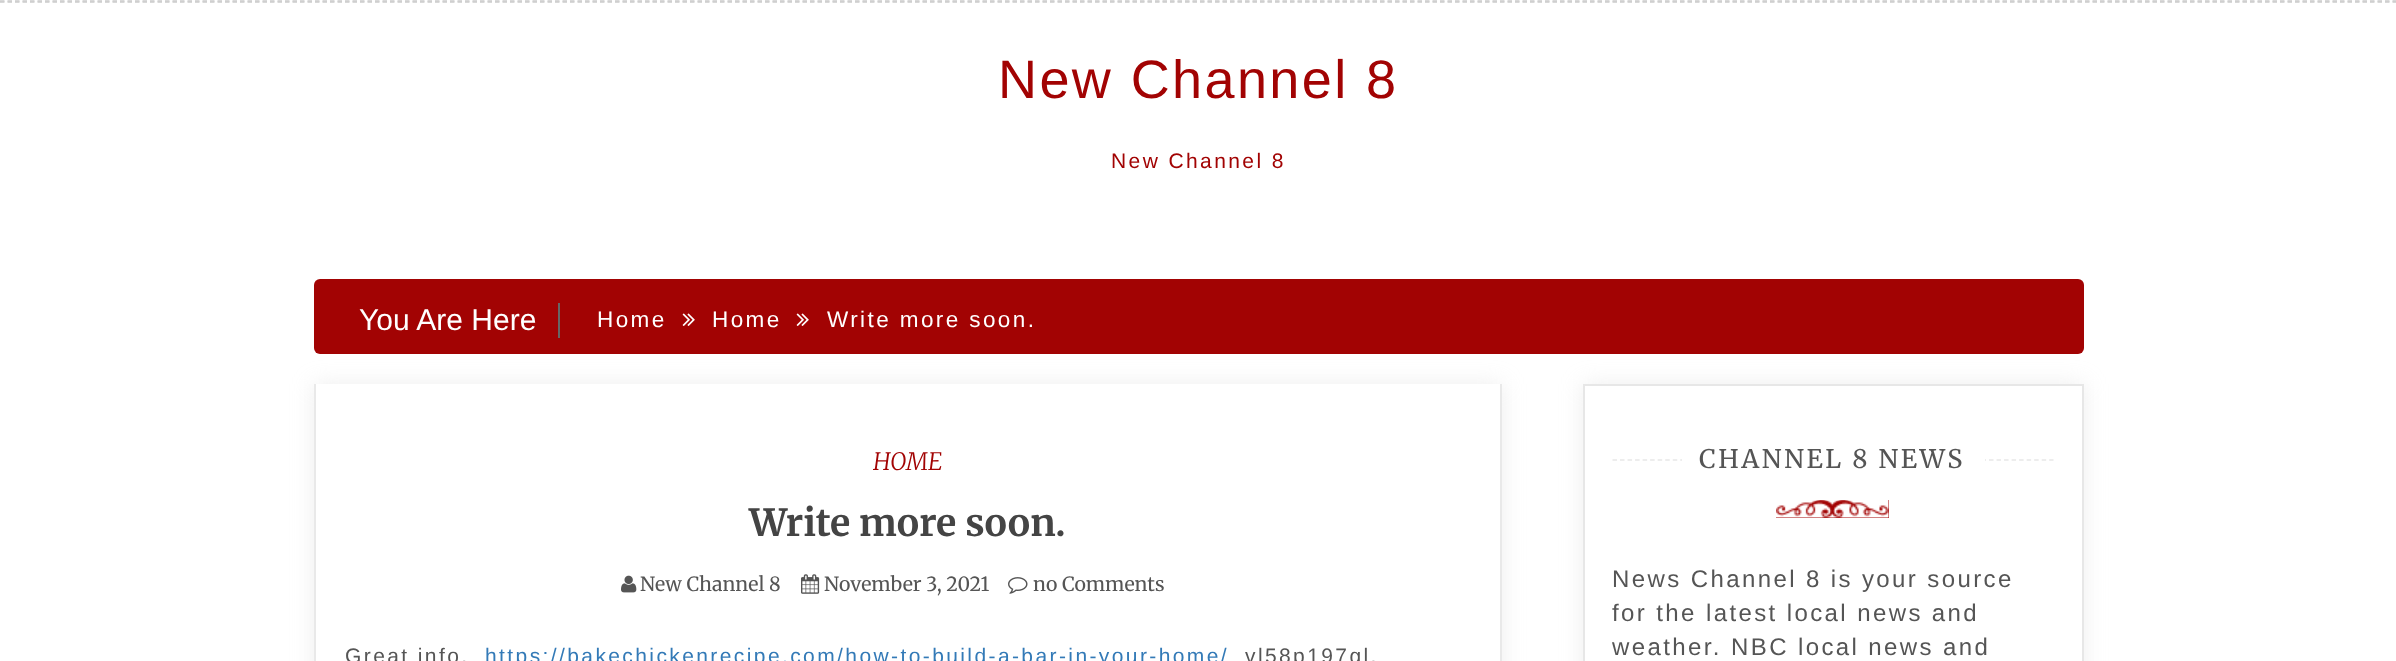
async function draw(canvas) {
  canvas.width = 2396
  canvas.height = 661
  const ctx = canvas.getContext('2d')
  ctx.miterLimit = 4
  ctx.fontKerning = 'normal'
  async function loadImage(src) {
    const img = new Image()
    img.src = src
    await img.decode()
    return img
  }

  ctx.fillStyle = '#fff'
  ctx.fillRect(0, 0, 2396, 661)
  ctx.beginPath()
  ctx.moveTo(0, 1)
  ctx.lineTo(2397, 1)
  ctx.strokeStyle = '#ccc'
  ctx.lineWidth = 1.5
  ctx.setLineDash([4.5, 3])
  ctx.stroke()
  ctx.beginPath()
  ctx.moveTo(0, 2)
  ctx.lineTo(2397, 2)
  ctx.stroke()
  ctx.letterSpacing = '2.4px'
  ctx.font = '54px Liberation Sans'
  ctx.fillStyle = '#a20303'
  ctx.fillText('New Channel 8', 998, 98)
  ctx.font = '21px Liberation Sans'
  ctx.fillText('New Channel 8', 1111, 168)
  ctx.beginPath()
  ctx.roundRect(314, 279, 1770, 75, 6)
  ctx.fill()
  ctx.letterSpacing = '0px'
  ctx.font = '30px Liberation Sans'
  ctx.fillStyle = '#fff'
  ctx.fillText('You Are Here', 359, 330)
  ctx.fillStyle = '#666'
  ctx.fillRect(558, 303, 2, 35)
  ctx.letterSpacing = '2.4px'
  ctx.font = '22.5px Liberation Sans'
  ctx.fillStyle = '#fff'
  ctx.fillText('Home', 597, 327)
  ctx.drawImage(await loadImage('image0.png'), 682, 313, 13, 13)
  ctx.fillText('Home', 712, 327)
  ctx.drawImage(await loadImage('image0.png'), 796, 313, 13, 13)
  ctx.fillText('Write more soon.', 827, 327)
  ctx.fillStyle = '#cccccc57'
  ctx.filter = 'blur(11px)'
  ctx.beginPath()
  ctx.rect(314, 384, 1188, 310)
  ctx.fill()
  ctx.filter = 'none'
  ctx.fillStyle = '#fff'
  ctx.fillRect(316, 384, 1184, 277)
  ctx.fillStyle = '#e9e9e9'
  ctx.fillRect(1500, 384, 2, 277)
  ctx.fillRect(314, 384, 2, 277)
  ctx.letterSpacing = '0px'
  ctx.font = 'italic 300 24px Merriweather'
  ctx.fillStyle = '#a20303'
  ctx.fillText('HOME', 873, 470)
  ctx.font = 'bold 37.5px Merriweather'
  ctx.fillStyle = '#444'
  ctx.fillText('Write more soon.', 749, 536)
  ctx.drawImage(await loadImage('image1.png'), 621, 575, 16, 18)
  ctx.font = '19.5px Merriweather'
  ctx.fillStyle = '#555'
  ctx.fillText('New Channel 8', 640, 591)
  ctx.drawImage(await loadImage('image2.png'), 801, 574, 19, 20)
  ctx.fillText('November 3, 2021', 824, 591)
  ctx.drawImage(await loadImage('image3.png'), 1008, 577, 20, 17)
  ctx.fillText('no Comments', 1033, 591)
  ctx.letterSpacing = '2.4px'
  ctx.font = '21px Liberation Sans'
  ctx.fillText('Great info.', 345, 663)
  ctx.fillStyle = '#337ab7'
  ctx.fillText('https://bakechickenrecipe.com/how-to-build-a-bar-in-your-home/', 485, 663)
  ctx.fillStyle = '#555'
  ctx.fillText('vl58p197gl.', 1245, 663)
  ctx.fillStyle = '#cccccc57'
  ctx.filter = 'blur(11px)'
  ctx.beginPath()
  ctx.rect(1583, 384, 501, 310)
  ctx.fill()
  ctx.filter = 'none'
  ctx.fillStyle = '#fff'
  ctx.beginPath()
  ctx.rect(1584, 385, 499, 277)
  ctx.fill()
  ctx.strokeStyle = '#e7e7e7'
  ctx.lineWidth = 2
  ctx.setLineDash([])
  ctx.stroke()
  ctx.beginPath()
  ctx.moveTo(1612.5, 460)
  ctx.lineTo(2053.5, 460)
  ctx.lineWidth = 1.5
  ctx.setLineDash([4.5, 3.03])
  ctx.stroke()
  ctx.fillRect(1682, 459, 303, 2)
  ctx.letterSpacing = '2.5px'
  ctx.font = '25.5px Merriweather'
  ctx.fillStyle = '#555'
  ctx.fillText('CHANNEL 8 NEWS', 1699, 468)
  ctx.fillStyle = '#a20303'
  ctx.fillRect(1776, 500, 113, 18)
  ctx.drawImage(await loadImage('image4.png'), 1776, 500, 113, 18)
  ctx.letterSpacing = '2.4px'
  ctx.font = '24px Liberation Sans'
  ctx.fillStyle = '#555'
  ctx.fillText('News Channel 8 is your source', 1612, 587)
  ctx.fillText('for the latest local news and', 1612, 621)
  ctx.fillText('weather. NBC local news and', 1612, 655)
}

draw(document.querySelector('canvas'))
